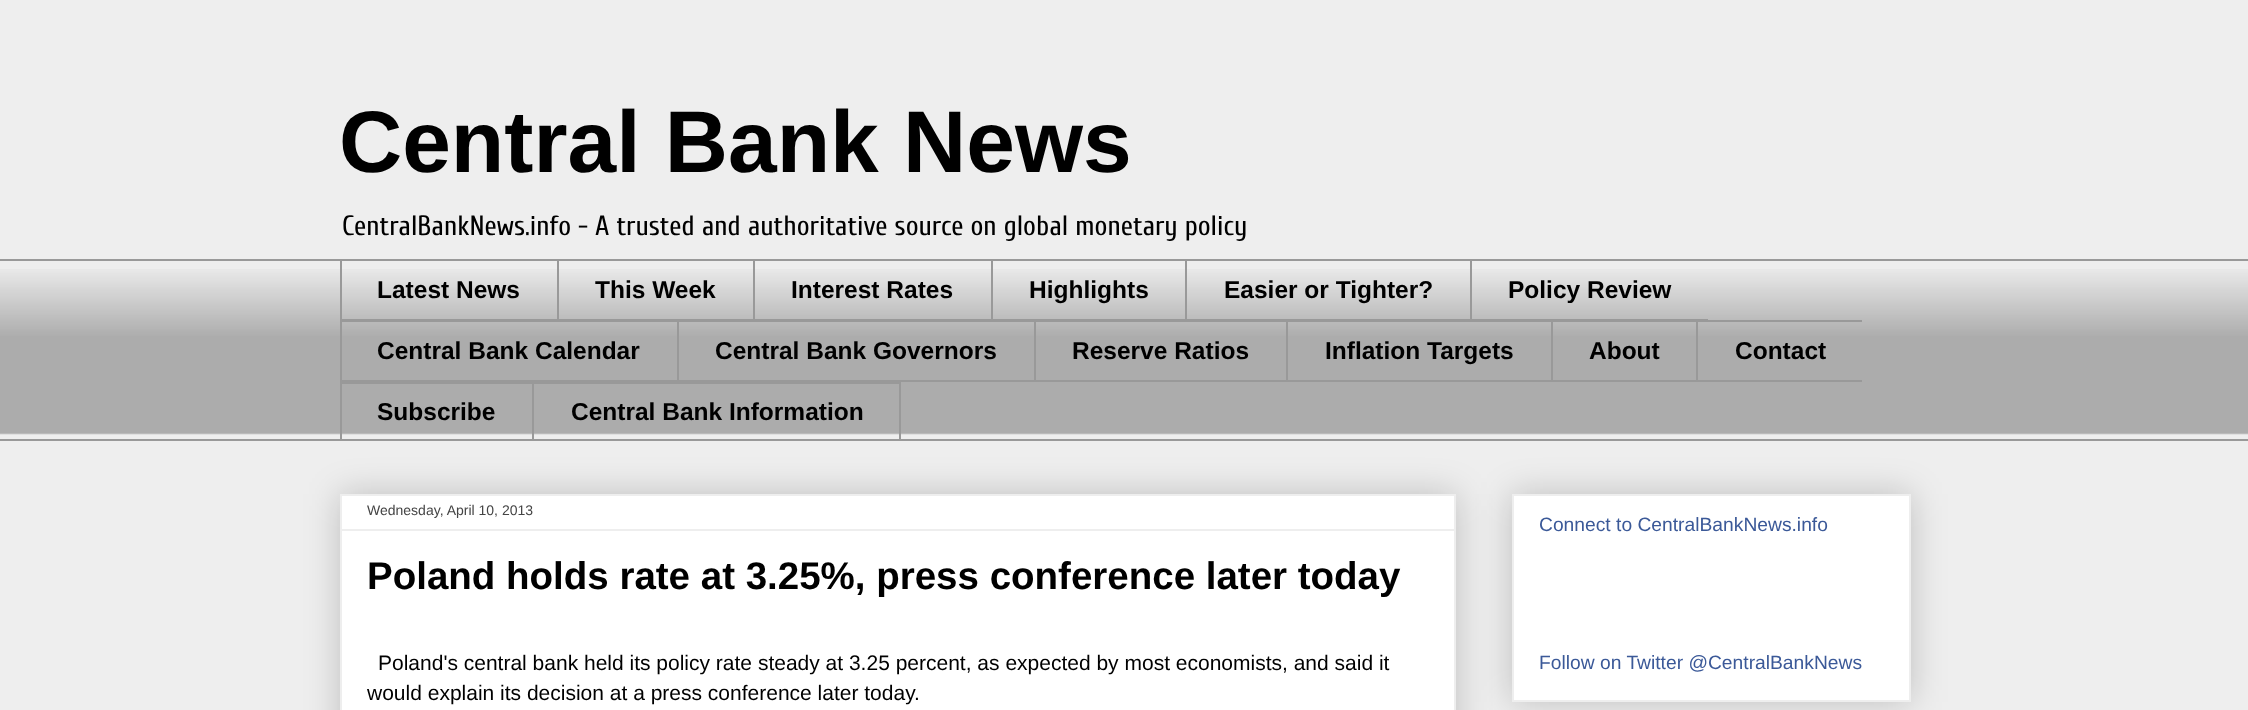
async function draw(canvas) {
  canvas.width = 2248
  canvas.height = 710
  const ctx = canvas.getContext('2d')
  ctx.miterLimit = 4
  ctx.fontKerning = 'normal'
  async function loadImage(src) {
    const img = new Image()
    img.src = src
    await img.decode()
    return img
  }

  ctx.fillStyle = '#eee'
  ctx.fillRect(0, 0, 2248, 710)
  ctx.font = 'bold 87.5px Liberation Sans'
  ctx.fillStyle = '#000'
  ctx.fillText('Central Bank News', 339, 172)
  ctx.font = '28px Cuprum'
  ctx.fillText('CentralBankNews.info - A trusted and authoritative source on global monetary policy', 342, 235)
  ctx.drawImage(await loadImage('image0.png'), 0, 269, 2248, 166)
  ctx.fillStyle = '#999'
  ctx.fillRect(0, 259, 2248, 2)
  ctx.fillRect(340, 319, 1368, 1)
  ctx.fillRect(340, 259, 2, 61)
  ctx.font = 'bold 24.5px Liberation Sans'
  ctx.fillStyle = '#000'
  ctx.fillText('Latest News', 377, 298)
  ctx.fillStyle = '#999'
  ctx.fillRect(557, 259, 2, 61)
  ctx.fillStyle = '#000'
  ctx.fillText('This Week', 595, 298)
  ctx.fillStyle = '#999'
  ctx.fillRect(753, 259, 2, 61)
  ctx.fillStyle = '#000'
  ctx.fillText('Interest Rates', 791, 298)
  ctx.fillStyle = '#999'
  ctx.fillRect(991, 259, 2, 61)
  ctx.fillStyle = '#000'
  ctx.fillText('Highlights', 1029, 298)
  ctx.fillStyle = '#999'
  ctx.fillRect(1185, 259, 2, 61)
  ctx.fillStyle = '#000'
  ctx.fillText('Easier or Tighter?', 1224, 298)
  ctx.fillStyle = '#999'
  ctx.fillRect(1470, 259, 2, 61)
  ctx.fillStyle = '#000'
  ctx.fillText('Policy Review', 1508, 298)
  ctx.fillStyle = '#999'
  ctx.fillRect(340, 320, 1522, 2)
  ctx.fillRect(340, 380, 1522, 2)
  ctx.fillRect(340, 320, 2, 62)
  ctx.fillStyle = '#000'
  ctx.fillText('Central Bank Calendar', 377, 359)
  ctx.fillStyle = '#999'
  ctx.fillRect(677, 320, 2, 62)
  ctx.fillStyle = '#000'
  ctx.fillText('Central Bank Governors', 715, 359)
  ctx.fillStyle = '#999'
  ctx.fillRect(1034, 320, 2, 62)
  ctx.fillStyle = '#000'
  ctx.fillText('Reserve Ratios', 1072, 359)
  ctx.fillStyle = '#999'
  ctx.fillRect(1286, 320, 2, 62)
  ctx.fillStyle = '#000'
  ctx.fillText('Inflation Targets', 1325, 359)
  ctx.fillStyle = '#999'
  ctx.fillRect(1551, 320, 2, 62)
  ctx.fillStyle = '#000'
  ctx.fillText('About', 1589, 359)
  ctx.fillStyle = '#999'
  ctx.fillRect(1696, 320, 2, 62)
  ctx.fillStyle = '#000'
  ctx.fillText('Contact', 1735, 359)
  ctx.fillStyle = '#999'
  ctx.fillRect(340, 382, 192, 2)
  ctx.fillRect(340, 382, 2, 59)
  ctx.fillStyle = '#000'
  ctx.fillText('Subscribe', 377, 420)
  ctx.strokeStyle = '#999'
  ctx.lineWidth = 2
  ctx.strokeRect(533, 383, 367, 57)
  ctx.fillText('Central Bank Information', 571, 420)
  ctx.fillStyle = '#999'
  ctx.fillRect(0, 439, 2248, 2)
  ctx.fillStyle = '#00000033'
  ctx.filter = 'blur(17.5px)'
  ctx.beginPath()
  ctx.rect(340, 494, 1116, 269)
  ctx.fill()
  ctx.filter = 'none'
  ctx.fillStyle = '#fff'
  ctx.beginPath()
  ctx.rect(341, 495, 1114, 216)
  ctx.fill()
  ctx.strokeStyle = '#eee'
  ctx.stroke()
  ctx.font = '14px Liberation Sans'
  ctx.fillStyle = '#444'
  ctx.fillText('Wednesday, April 10, 2013', 367, 515)
  ctx.fillStyle = '#eee'
  ctx.fillRect(341, 529, 1113, 2)
  ctx.font = 'bold 38.5px Liberation Sans'
  ctx.fillStyle = '#000'
  ctx.fillText('Poland holds rate at 3.25%, press conference later today', 367, 589)
  ctx.font = '21px Liberation Sans'
  ctx.fillText('Poland\'s central bank held its policy rate steady at 3.25 percent, as expected by most economists, and said it', 378, 670)
  ctx.fillText('would explain its decision at a press conference later today.', 367, 700)
  ctx.fillStyle = '#00000033'
  ctx.filter = 'blur(17.5px)'
  ctx.beginPath()
  ctx.rect(1512, 494, 399, 208)
  ctx.fill()
  ctx.filter = 'none'
  ctx.fillStyle = '#fff'
  ctx.beginPath()
  ctx.rect(1513, 495, 397, 206)
  ctx.fill()
  ctx.stroke()
  ctx.font = '19.25px Liberation Sans'
  ctx.fillStyle = '#3b5998'
  ctx.fillText('Connect to CentralBankNews.info', 1539, 531)
  ctx.fillText('Follow on Twitter @CentralBankNews', 1539, 669)
}

draw(document.querySelector('canvas'))
